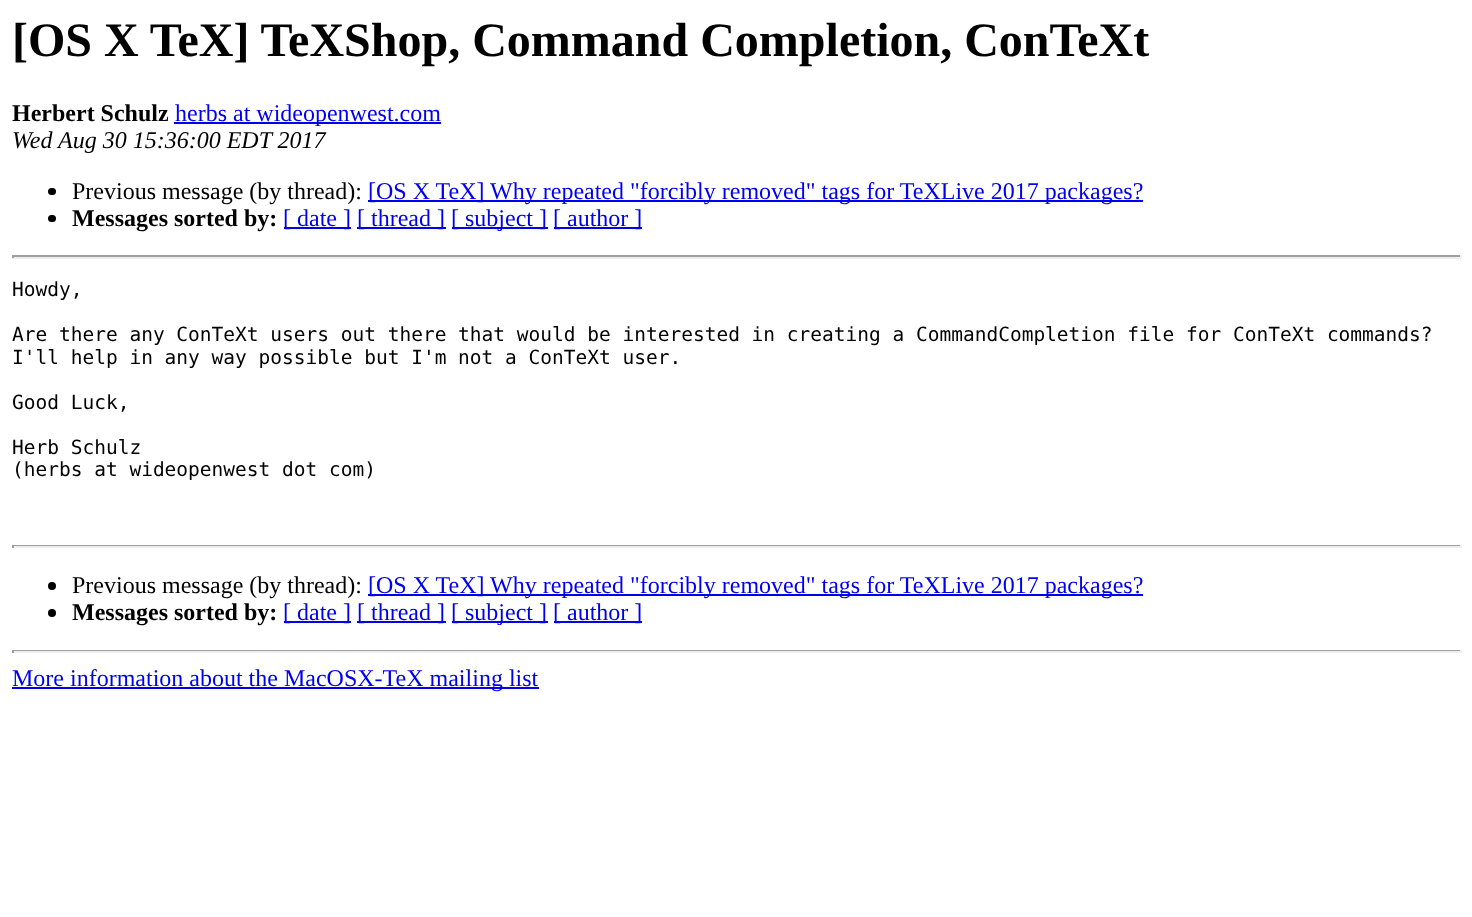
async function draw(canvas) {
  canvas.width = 1472
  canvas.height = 917
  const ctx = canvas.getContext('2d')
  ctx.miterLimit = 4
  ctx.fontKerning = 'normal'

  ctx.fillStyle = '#fff'
  ctx.fillRect(0, 0, 1472, 917)
  ctx.font = 'bold 48px Liberation Serif'
  ctx.fillStyle = '#000'
  ctx.fillText('[OS X TeX] TeXShop, Command Completion, ConTeXt', 12, 56)
  ctx.font = 'bold 24px Liberation Serif'
  ctx.fillText('Herbert Schulz', 12, 121)
  ctx.fillStyle = '#00e'
  ctx.fillRect(174, 122, 267, 2)
  ctx.font = '24px Liberation Serif'
  ctx.fillText('herbs at wideopenwest.com', 175, 121)
  ctx.font = 'italic 24px Liberation Serif'
  ctx.fillStyle = '#000'
  ctx.fillText('Wed Aug 30 15:36:00 EDT 2017', 12, 148)
  ctx.beginPath()
  ctx.roundRect(48, 188, 8, 7, 3.5)
  ctx.fill()
  ctx.font = '24px Liberation Serif'
  ctx.fillText('Previous message (by thread):', 72, 199)
  ctx.fillStyle = '#00e'
  ctx.fillRect(368, 200, 775, 2)
  ctx.fillText('[OS X TeX] Why repeated "forcibly removed" tags for TeXLive 2017 packages?', 368, 199)
  ctx.fillStyle = '#000'
  ctx.beginPath()
  ctx.roundRect(48, 215, 8, 7, 3.5)
  ctx.fill()
  ctx.font = 'bold 24px Liberation Serif'
  ctx.fillText('Messages sorted by:', 72, 226)
  ctx.fillStyle = '#00e'
  ctx.fillRect(284, 227, 67, 2)
  ctx.font = '24px Liberation Serif'
  ctx.fillText('[ date ]', 283, 226)
  ctx.fillRect(357, 227, 89, 2)
  ctx.fillText('[ thread ]', 357, 226)
  ctx.fillRect(452, 227, 96, 2)
  ctx.fillText('[ subject ]', 451, 226)
  ctx.fillRect(554, 227, 88, 2)
  ctx.fillText('[ author ]', 553, 226)
  ctx.fillStyle = '#9f9f9f'
  ctx.fillRect(12, 255, 1449, 2)
  ctx.fillStyle = '#eee'
  ctx.fillRect(1460, 255, 2, 3)
  ctx.fillRect(12, 257, 1449, 2)
  ctx.fillStyle = '#9f9f9f'
  ctx.fillRect(12, 255, 2, 3)
  ctx.font = '19.5px DejaVu Sans Mono'
  ctx.fillStyle = '#000'
  ctx.fillText('Howdy,', 12, 296)
  ctx.fillText('Are there any ConTeXt users out there that would be interested in creating a CommandCompletion file for ConTeXt commands?', 12, 341)
  ctx.fillText('I\'ll help in any way possible but I\'m not a ConTeXt user.', 12, 364)
  ctx.fillText('Good Luck,', 12, 409)
  ctx.fillText('Herb Schulz', 12, 454)
  ctx.fillText('(herbs at wideopenwest dot com)', 12, 476)
  ctx.fillStyle = '#9f9f9f'
  ctx.fillRect(12, 545, 1449, 1)
  ctx.fillStyle = '#eee'
  ctx.fillRect(1460, 545, 2, 3)
  ctx.fillRect(12, 546, 1449, 2)
  ctx.fillStyle = '#9f9f9f'
  ctx.fillRect(12, 545, 2, 3)
  ctx.fillStyle = '#000'
  ctx.beginPath()
  ctx.arc(52, 586, 4, 0, 2 * Math.PI)
  ctx.fill()
  ctx.font = '24px Liberation Serif'
  ctx.fillText('Previous message (by thread):', 72, 593)
  ctx.fillStyle = '#00e'
  ctx.fillRect(368, 594, 775, 2)
  ctx.fillText('[OS X TeX] Why repeated "forcibly removed" tags for TeXLive 2017 packages?', 368, 593)
  ctx.fillStyle = '#000'
  ctx.beginPath()
  ctx.arc(52, 613, 4, 0, 2 * Math.PI)
  ctx.fill()
  ctx.font = 'bold 24px Liberation Serif'
  ctx.fillText('Messages sorted by:', 72, 620)
  ctx.fillStyle = '#00e'
  ctx.fillRect(284, 621, 67, 2)
  ctx.font = '24px Liberation Serif'
  ctx.fillText('[ date ]', 283, 620)
  ctx.fillRect(357, 621, 89, 2)
  ctx.fillText('[ thread ]', 357, 620)
  ctx.fillRect(452, 621, 96, 2)
  ctx.fillText('[ subject ]', 451, 620)
  ctx.fillRect(554, 621, 88, 2)
  ctx.fillText('[ author ]', 553, 620)
  ctx.fillStyle = '#9f9f9f'
  ctx.fillRect(12, 650, 1449, 1)
  ctx.fillStyle = '#eee'
  ctx.fillRect(1460, 650, 2, 3)
  ctx.fillRect(12, 651, 1449, 2)
  ctx.fillStyle = '#9f9f9f'
  ctx.fillRect(12, 650, 2, 3)
  ctx.fillStyle = '#00e'
  ctx.fillRect(12, 687, 527, 2)
  ctx.fillText('More information about the MacOSX-TeX mailing list', 12, 686)
}

draw(document.querySelector('canvas'))
